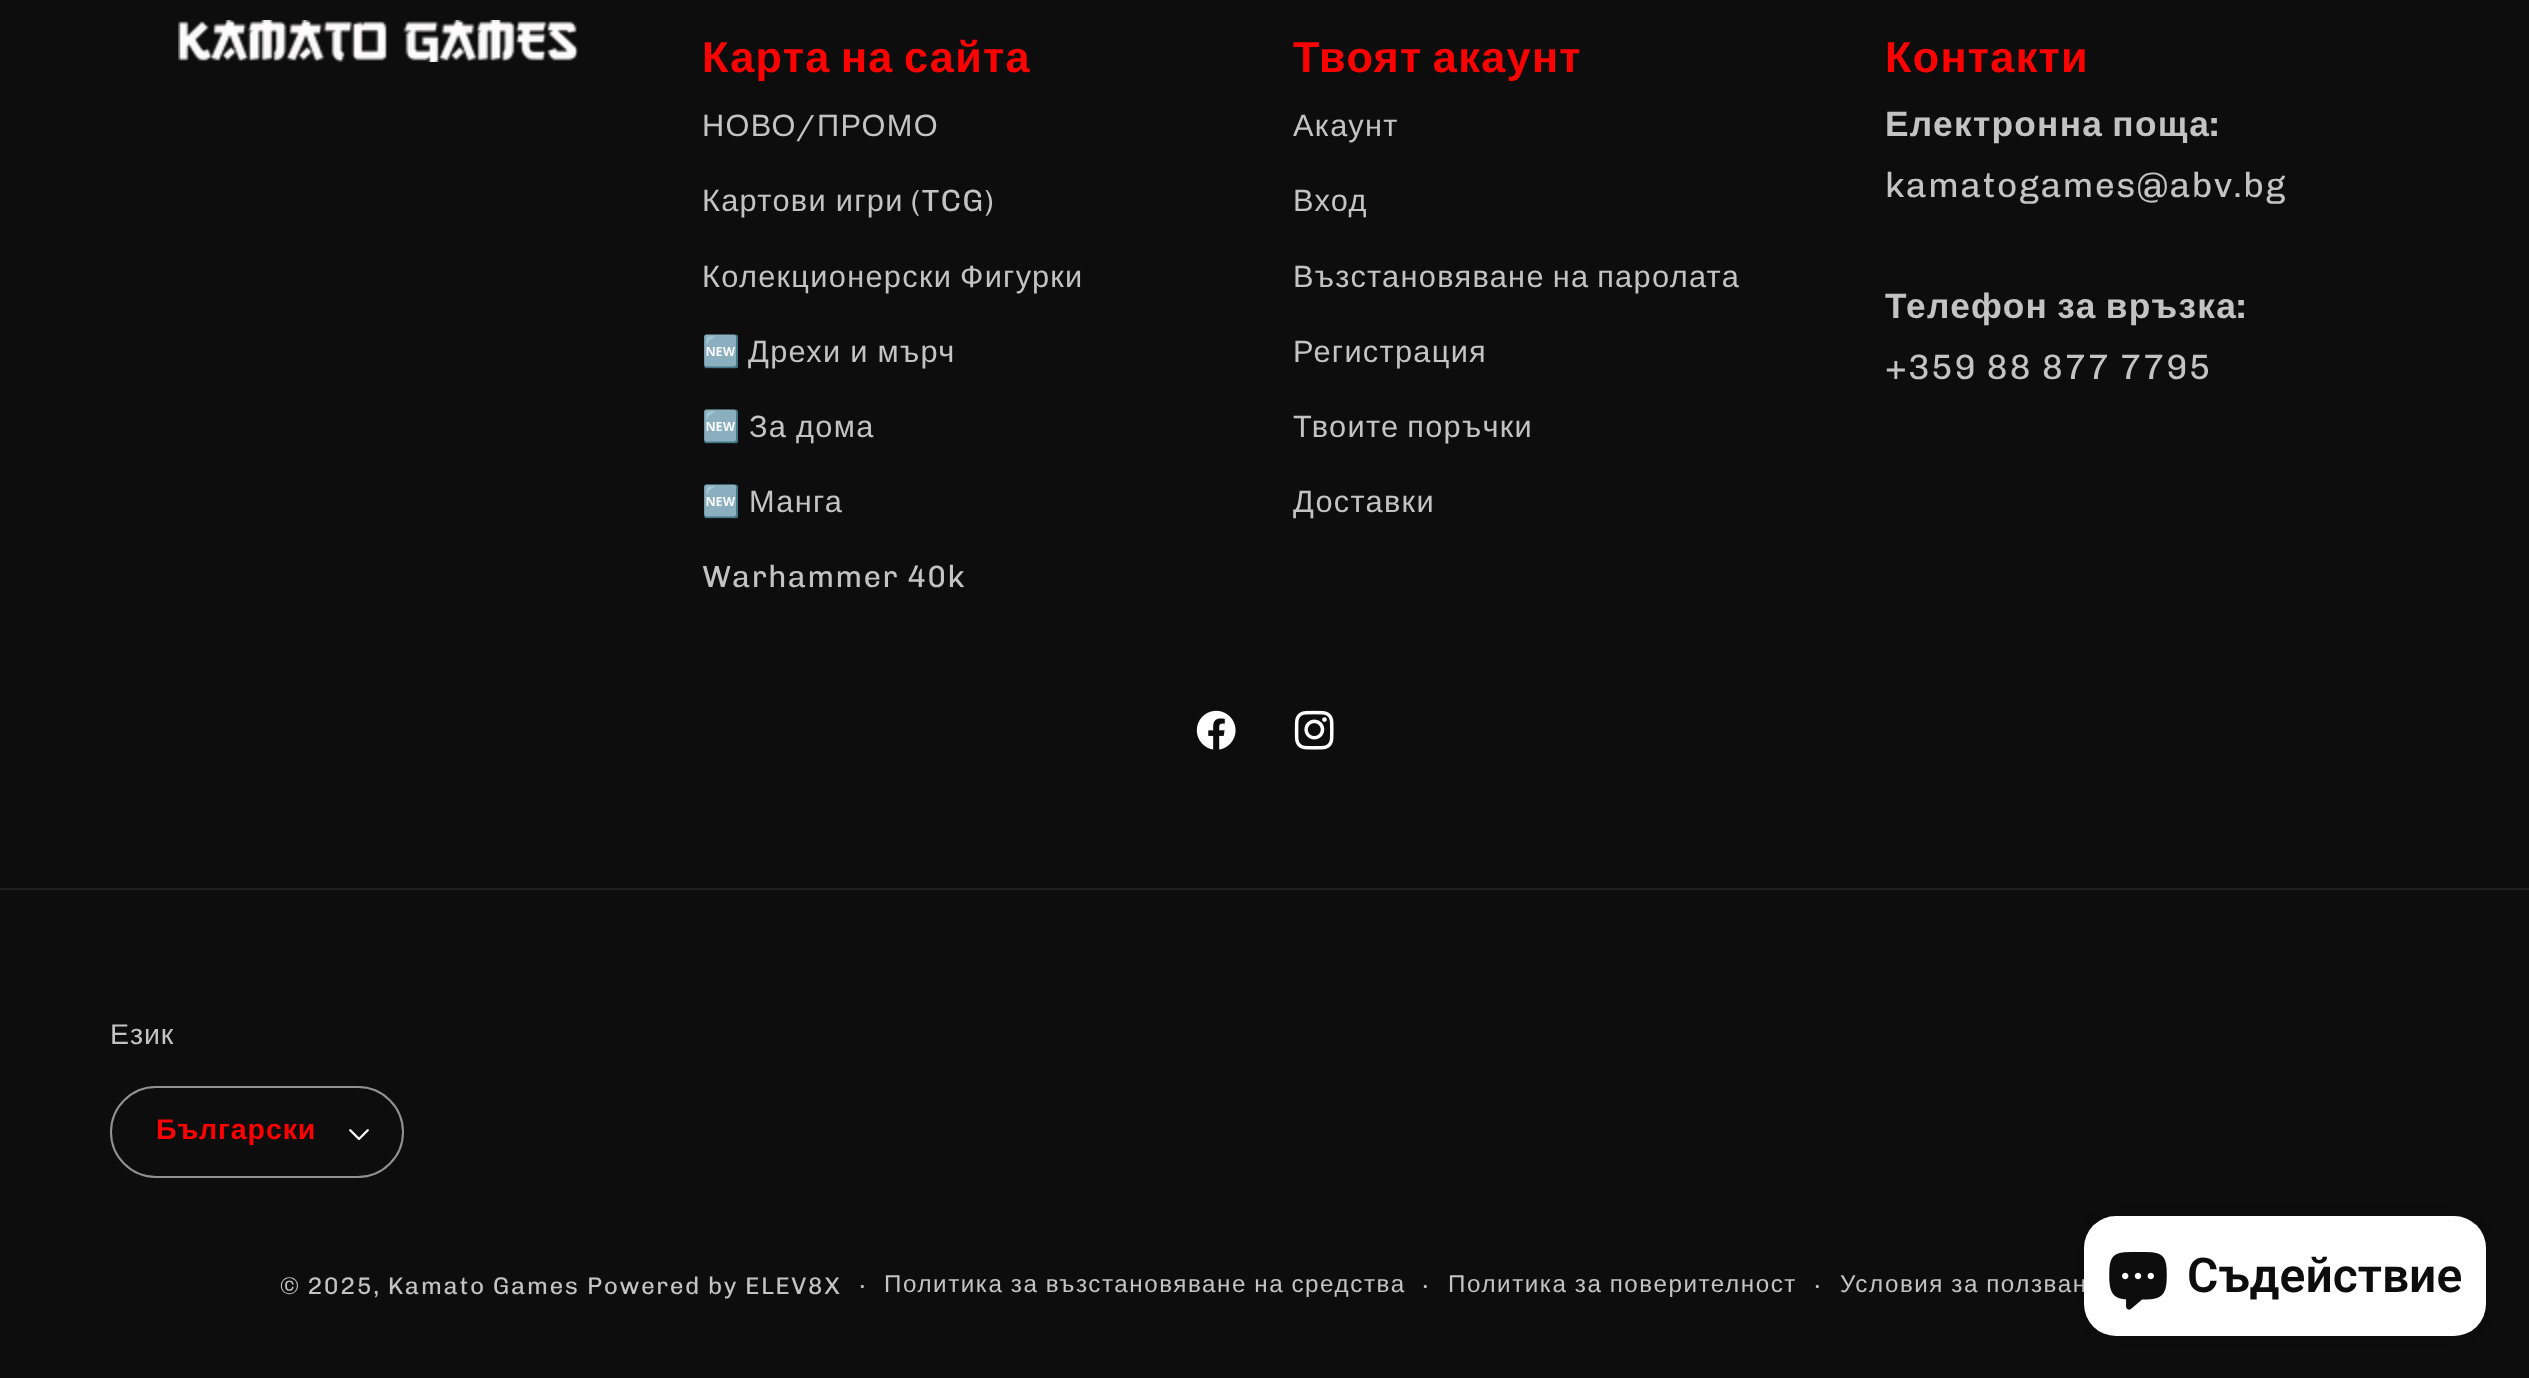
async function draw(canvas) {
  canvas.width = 2529
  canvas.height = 1378
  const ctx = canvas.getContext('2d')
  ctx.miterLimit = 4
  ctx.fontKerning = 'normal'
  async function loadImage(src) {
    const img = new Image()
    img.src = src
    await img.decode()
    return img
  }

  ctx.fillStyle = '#0d0d0d'
  ctx.fillRect(0, 0, 2529, 1378)
  ctx.drawImage(await loadImage('image0.png'), 178, 20, 400, 42)
  ctx.letterSpacing = '1.3px'
  ctx.wordSpacing = '-3px'
  ctx.font = 'bold 43.25px Liberation Sans'
  ctx.fillStyle = '#f00'
  ctx.fillText('Карта на сайта', 702, 72)
  ctx.wordSpacing = '0px'
  ctx.font = '30.75px Liberation Sans'
  ctx.fillStyle = '#c3c3c3'
  ctx.fillText('НОВО', 702, 136)
  ctx.font = '30.75px Chivo'
  ctx.fillText('/', 796, 136)
  ctx.font = '30.75px Liberation Sans'
  ctx.fillText('ПРОМО', 817, 136)
  ctx.wordSpacing = '-1px'
  ctx.fillText('Картови игри', 702, 211)
  ctx.wordSpacing = '0px'
  ctx.font = '30.75px Chivo'
  ctx.fillText('(TCG)', 911, 211)
  ctx.wordSpacing = '-2px'
  ctx.font = '30.75px Liberation Sans'
  ctx.fillText('Колекционерски Фигурки', 702, 287)
  ctx.wordSpacing = '0px'
  ctx.font = '30.75px Noto Color Emoji'
  ctx.fillText('🆕', 702, 362)
  ctx.wordSpacing = '-1px'
  ctx.font = '30.75px Liberation Sans'
  ctx.fillText('Дрехи и мърч', 748, 362)
  ctx.wordSpacing = '0px'
  ctx.font = '30.75px Noto Color Emoji'
  ctx.fillText('🆕', 702, 437)
  ctx.wordSpacing = '-1px'
  ctx.font = '30.75px Liberation Sans'
  ctx.fillText('За дома', 749, 437)
  ctx.wordSpacing = '0px'
  ctx.font = '30.75px Noto Color Emoji'
  ctx.fillText('🆕', 702, 512)
  ctx.font = '30.75px Liberation Sans'
  ctx.fillText('Манга', 749, 512)
  ctx.font = '30.75px Chivo'
  ctx.fillText('Warhammer 40k', 702, 587)
  ctx.wordSpacing = '-3px'
  ctx.font = 'bold 43.25px Liberation Sans'
  ctx.fillStyle = '#f00'
  ctx.fillText('Твоят акаунт', 1293, 72)
  ctx.wordSpacing = '0px'
  ctx.font = '30.75px Liberation Sans'
  ctx.fillStyle = '#c3c3c3'
  ctx.fillText('Акаунт', 1293, 136)
  ctx.fillText('Вход', 1293, 211)
  ctx.wordSpacing = '-2px'
  ctx.fillText('Възстановяване на паролата', 1293, 287)
  ctx.wordSpacing = '0px'
  ctx.fillText('Регистрация', 1293, 362)
  ctx.wordSpacing = '-2px'
  ctx.fillText('Твоите поръчки', 1293, 437)
  ctx.wordSpacing = '0px'
  ctx.fillText('Доставки', 1293, 512)
  ctx.font = 'bold 43.25px Liberation Sans'
  ctx.fillStyle = '#f00'
  ctx.fillText('Контакти', 1885, 72)
  ctx.wordSpacing = '-2px'
  ctx.font = 'bold 35.25px Liberation Sans'
  ctx.fillStyle = '#c3c3c3'
  ctx.fillText('Електронна поща', 1885, 136)
  ctx.wordSpacing = '0px'
  ctx.font = 'bold 35.25px Chivo'
  ctx.fillText(':', 2209, 136)
  ctx.font = '35.25px Chivo'
  ctx.fillText('kamatogames@abv.bg', 1885, 197)
  ctx.wordSpacing = '-2px'
  ctx.font = 'bold 35.25px Liberation Sans'
  ctx.fillText('Телефон за връзка', 1885, 318)
  ctx.wordSpacing = '0px'
  ctx.font = 'bold 35.25px Chivo'
  ctx.fillText(':', 2236, 318)
  ctx.font = '35.25px Chivo'
  ctx.fillText('+359 88 877 7795', 1885, 379)
  ctx.drawImage(await loadImage('image1.png'), 1196, 710, 40, 40)
  ctx.drawImage(await loadImage('image2.png'), 1294, 710, 40, 40)
  ctx.fillStyle = '#202020'
  ctx.fillRect(0, 888, 2529, 2)
  ctx.letterSpacing = '0.9px'
  ctx.font = '28.5px Liberation Sans'
  ctx.fillStyle = '#c3c3c3'
  ctx.fillText('Език', 110, 1044)
  ctx.drawImage(await loadImage('image3.png'), 349, 1129, 20, 11)
  ctx.beginPath()
  ctx.roundRect(111, 1087, 292, 90, 45)
  ctx.strokeStyle = '#929292'
  ctx.lineWidth = 2
  ctx.stroke()
  ctx.font = 'bold 28.5px Liberation Sans'
  ctx.fillStyle = '#f00'
  ctx.fillText('Български', 156, 1139)
  ctx.letterSpacing = '1.55px'
  ctx.font = '24.2px Chivo'
  ctx.fillStyle = '#c3c3c3'
  ctx.fillText('© 2025, Kamato Games', 280, 1294)
  ctx.fillText('Powered by ELEV8X', 587, 1294)
  ctx.font = '26px Chivo'
  ctx.fillText('·', 859, 1294)
  ctx.wordSpacing = '-1px'
  ctx.font = '24.2px Liberation Sans'
  ctx.fillText('Политика за възстановяване на средства', 884, 1292)
  ctx.wordSpacing = '0px'
  ctx.font = '26px Chivo'
  ctx.fillText('·', 1422, 1294)
  ctx.wordSpacing = '-1px'
  ctx.font = '24.2px Liberation Sans'
  ctx.fillText('Политика за поверителност', 1448, 1292)
  ctx.wordSpacing = '0px'
  ctx.font = '26px Chivo'
  ctx.fillText('·', 1814, 1294)
  ctx.wordSpacing = '-1px'
  ctx.font = '24.2px Liberation Sans'
  ctx.fillText('Условия за ползван', 1840, 1292)
  ctx.fillStyle = '#00000026'
  ctx.filter = 'blur(5px)'
  ctx.beginPath()
  ctx.roundRect(2084, 1216, 402, 120, 32)
  ctx.fill()
  ctx.filter = 'none'
  ctx.fillStyle = '#fff'
  ctx.beginPath()
  ctx.roundRect(2084, 1216, 402, 120, 32)
  ctx.fill()
  ctx.drawImage(await loadImage('image4.png'), 2109, 1252, 58, 58)
  ctx.letterSpacing = '0px'
  ctx.wordSpacing = '0px'
  ctx.font = '600 48px Roboto'
  ctx.fillStyle = '#0d0d0d'
  ctx.fillText('Съдействие', 2187, 1292)
}

draw(document.querySelector('canvas'))
